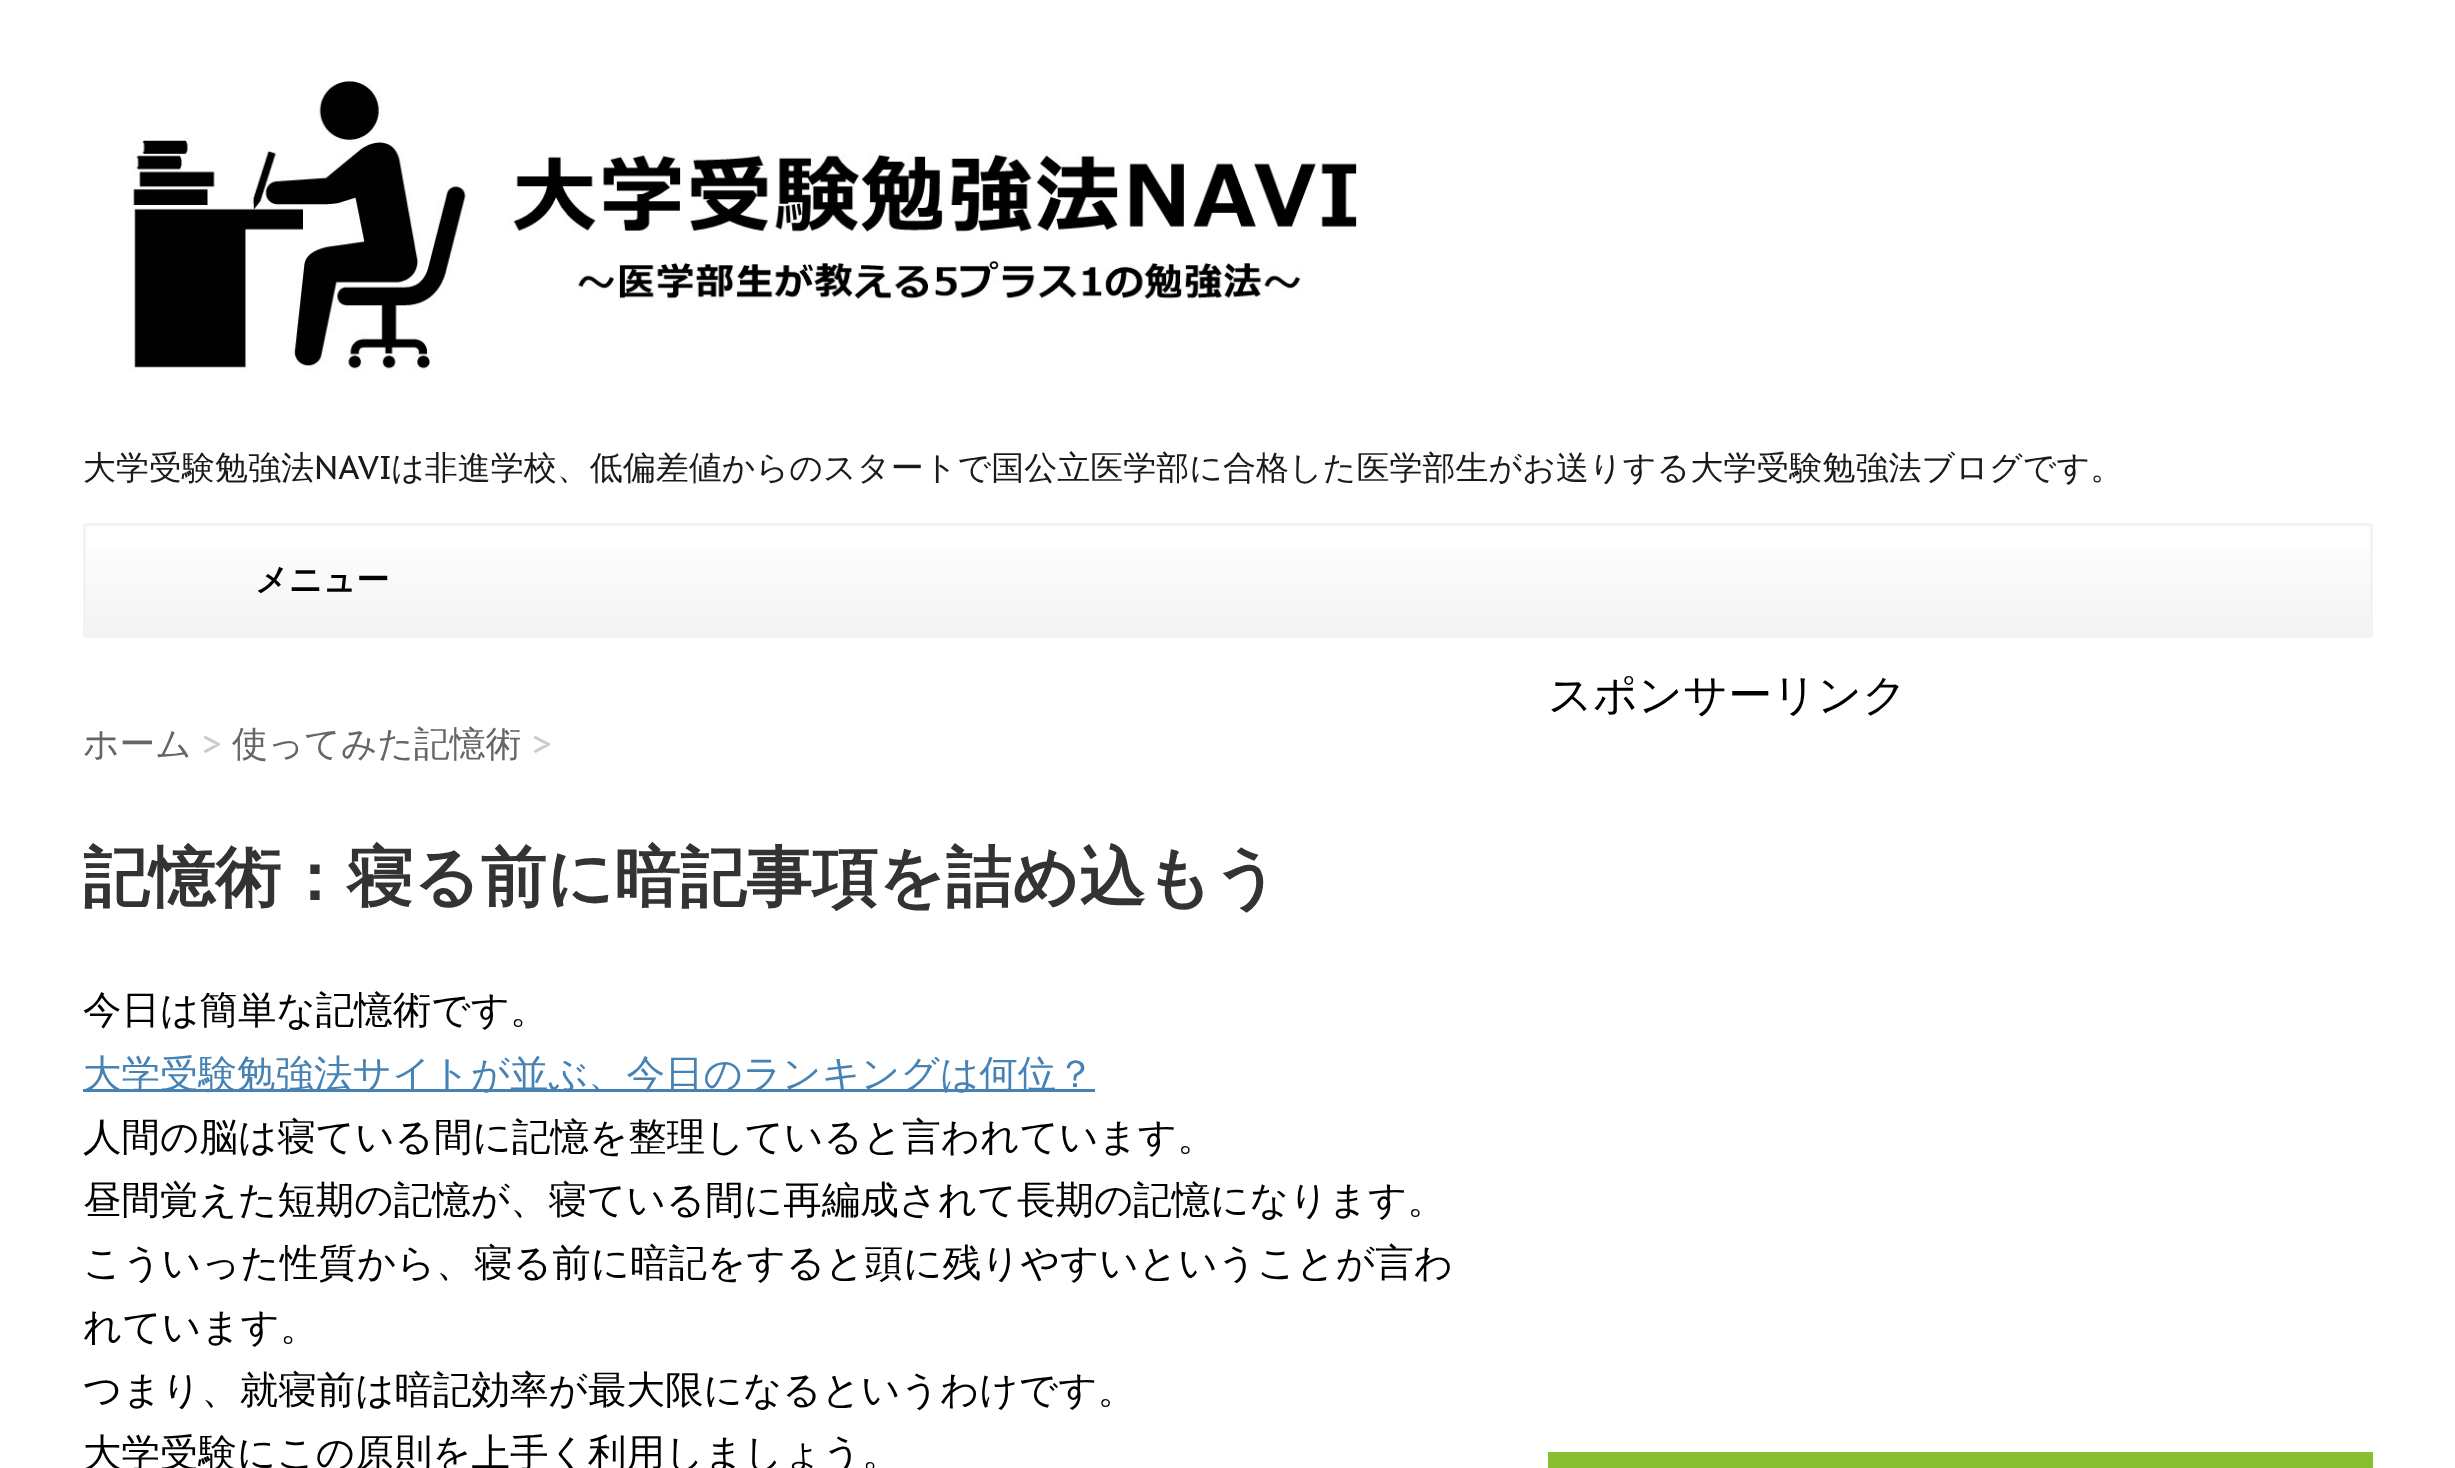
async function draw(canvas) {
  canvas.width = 2455
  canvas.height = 1468
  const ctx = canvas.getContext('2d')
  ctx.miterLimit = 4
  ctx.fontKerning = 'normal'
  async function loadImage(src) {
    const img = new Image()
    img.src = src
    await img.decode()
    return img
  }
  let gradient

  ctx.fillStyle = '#fff'
  ctx.fillRect(0, 0, 2455, 1468)
  ctx.drawImage(await loadImage('image0.png'), 130, 81, 1227, 291)
  ctx.font = '500 33px WenQuanYi Zen Hei'
  ctx.fillStyle = '#1a1a1a'
  ctx.fillText('大学受験勉強法', 83, 479)
  ctx.font = '33px PT Sans Caption'
  ctx.fillText('NAVI', 314, 479)
  ctx.font = '500 33px WenQuanYi Zen Hei'
  ctx.fillText('は非進学校、低偏差値からのスタートで国公立医学部に合格した医学部生がお送りする大学受験勉強法ブログです。', 391, 479)
  gradient = ctx.createLinearGradient(1228, 525, 1228, 635)
  gradient.addColorStop(0, '#fff')
  gradient.addColorStop(1, '#f3f3f3')
  ctx.fillStyle = gradient
  ctx.fillRect(83, 548, 2290, 87)
  ctx.beginPath()
  ctx.roundRect(84.5, 524.5, 2287, 112, 1.5)
  ctx.strokeStyle = '#f3f3f3'
  ctx.lineWidth = 3
  ctx.stroke()
  ctx.font = 'bold 33px WenQuanYi Zen Hei'
  ctx.fillStyle = '#000'
  ctx.fillText('メニュー', 255, 591)
  ctx.font = '500 44px WenQuanYi Zen Hei'
  ctx.fillText('スポンサーリンク', 1548, 710)
  ctx.fillStyle = '#87bf31'
  ctx.fillRect(1548, 1452, 825, 16)
  ctx.font = '500 35.75px WenQuanYi Zen Hei'
  ctx.fillStyle = '#666'
  ctx.fillText('ホーム', 83, 756)
  ctx.font = '35.75px PT Sans Caption'
  ctx.fillStyle = '#ccc'
  ctx.fillText('>', 202, 756)
  ctx.font = '500 35.75px WenQuanYi Zen Hei'
  ctx.fillStyle = '#666'
  ctx.fillText('使ってみた記憶術', 232, 756)
  ctx.font = '35.75px PT Sans Caption'
  ctx.fillStyle = '#ccc'
  ctx.fillText('>', 532, 756)
  ctx.font = 'bold 66px WenQuanYi Zen Hei'
  ctx.fillStyle = '#333'
  ctx.fillText('記憶術：寝る前に暗記事項を詰め込もう', 83, 900)
  ctx.font = '500 38.5px WenQuanYi Zen Hei'
  ctx.fillStyle = '#000'
  ctx.fillText('今日は簡単な記憶術です。', 83, 1023)
  ctx.fillStyle = '#4682b4'
  ctx.fillRect(83, 1089, 1012, 3)
  ctx.fillText('大学受験勉強法サイトが並ぶ、今日のランキングは何位？', 83, 1087)
  ctx.fillStyle = '#000'
  ctx.fillText('人間の脳は寝ている間に記憶を整理していると言われています。', 83, 1150)
  ctx.fillText('昼間覚えた短期の記憶が、寝ている間に再編成されて長期の記憶になります。', 83, 1213)
  ctx.fillText('こういった性質から、寝る前に暗記をすると頭に残りやすいということが言わ', 83, 1276)
  ctx.fillText('れています。', 83, 1340)
  ctx.fillText('つまり、就寝前は暗記効率が最大限になるというわけです。', 83, 1403)
  ctx.fillText('大学受験にこの原則を上手く利用しましょう。', 83, 1466)
}

draw(document.querySelector('canvas'))
